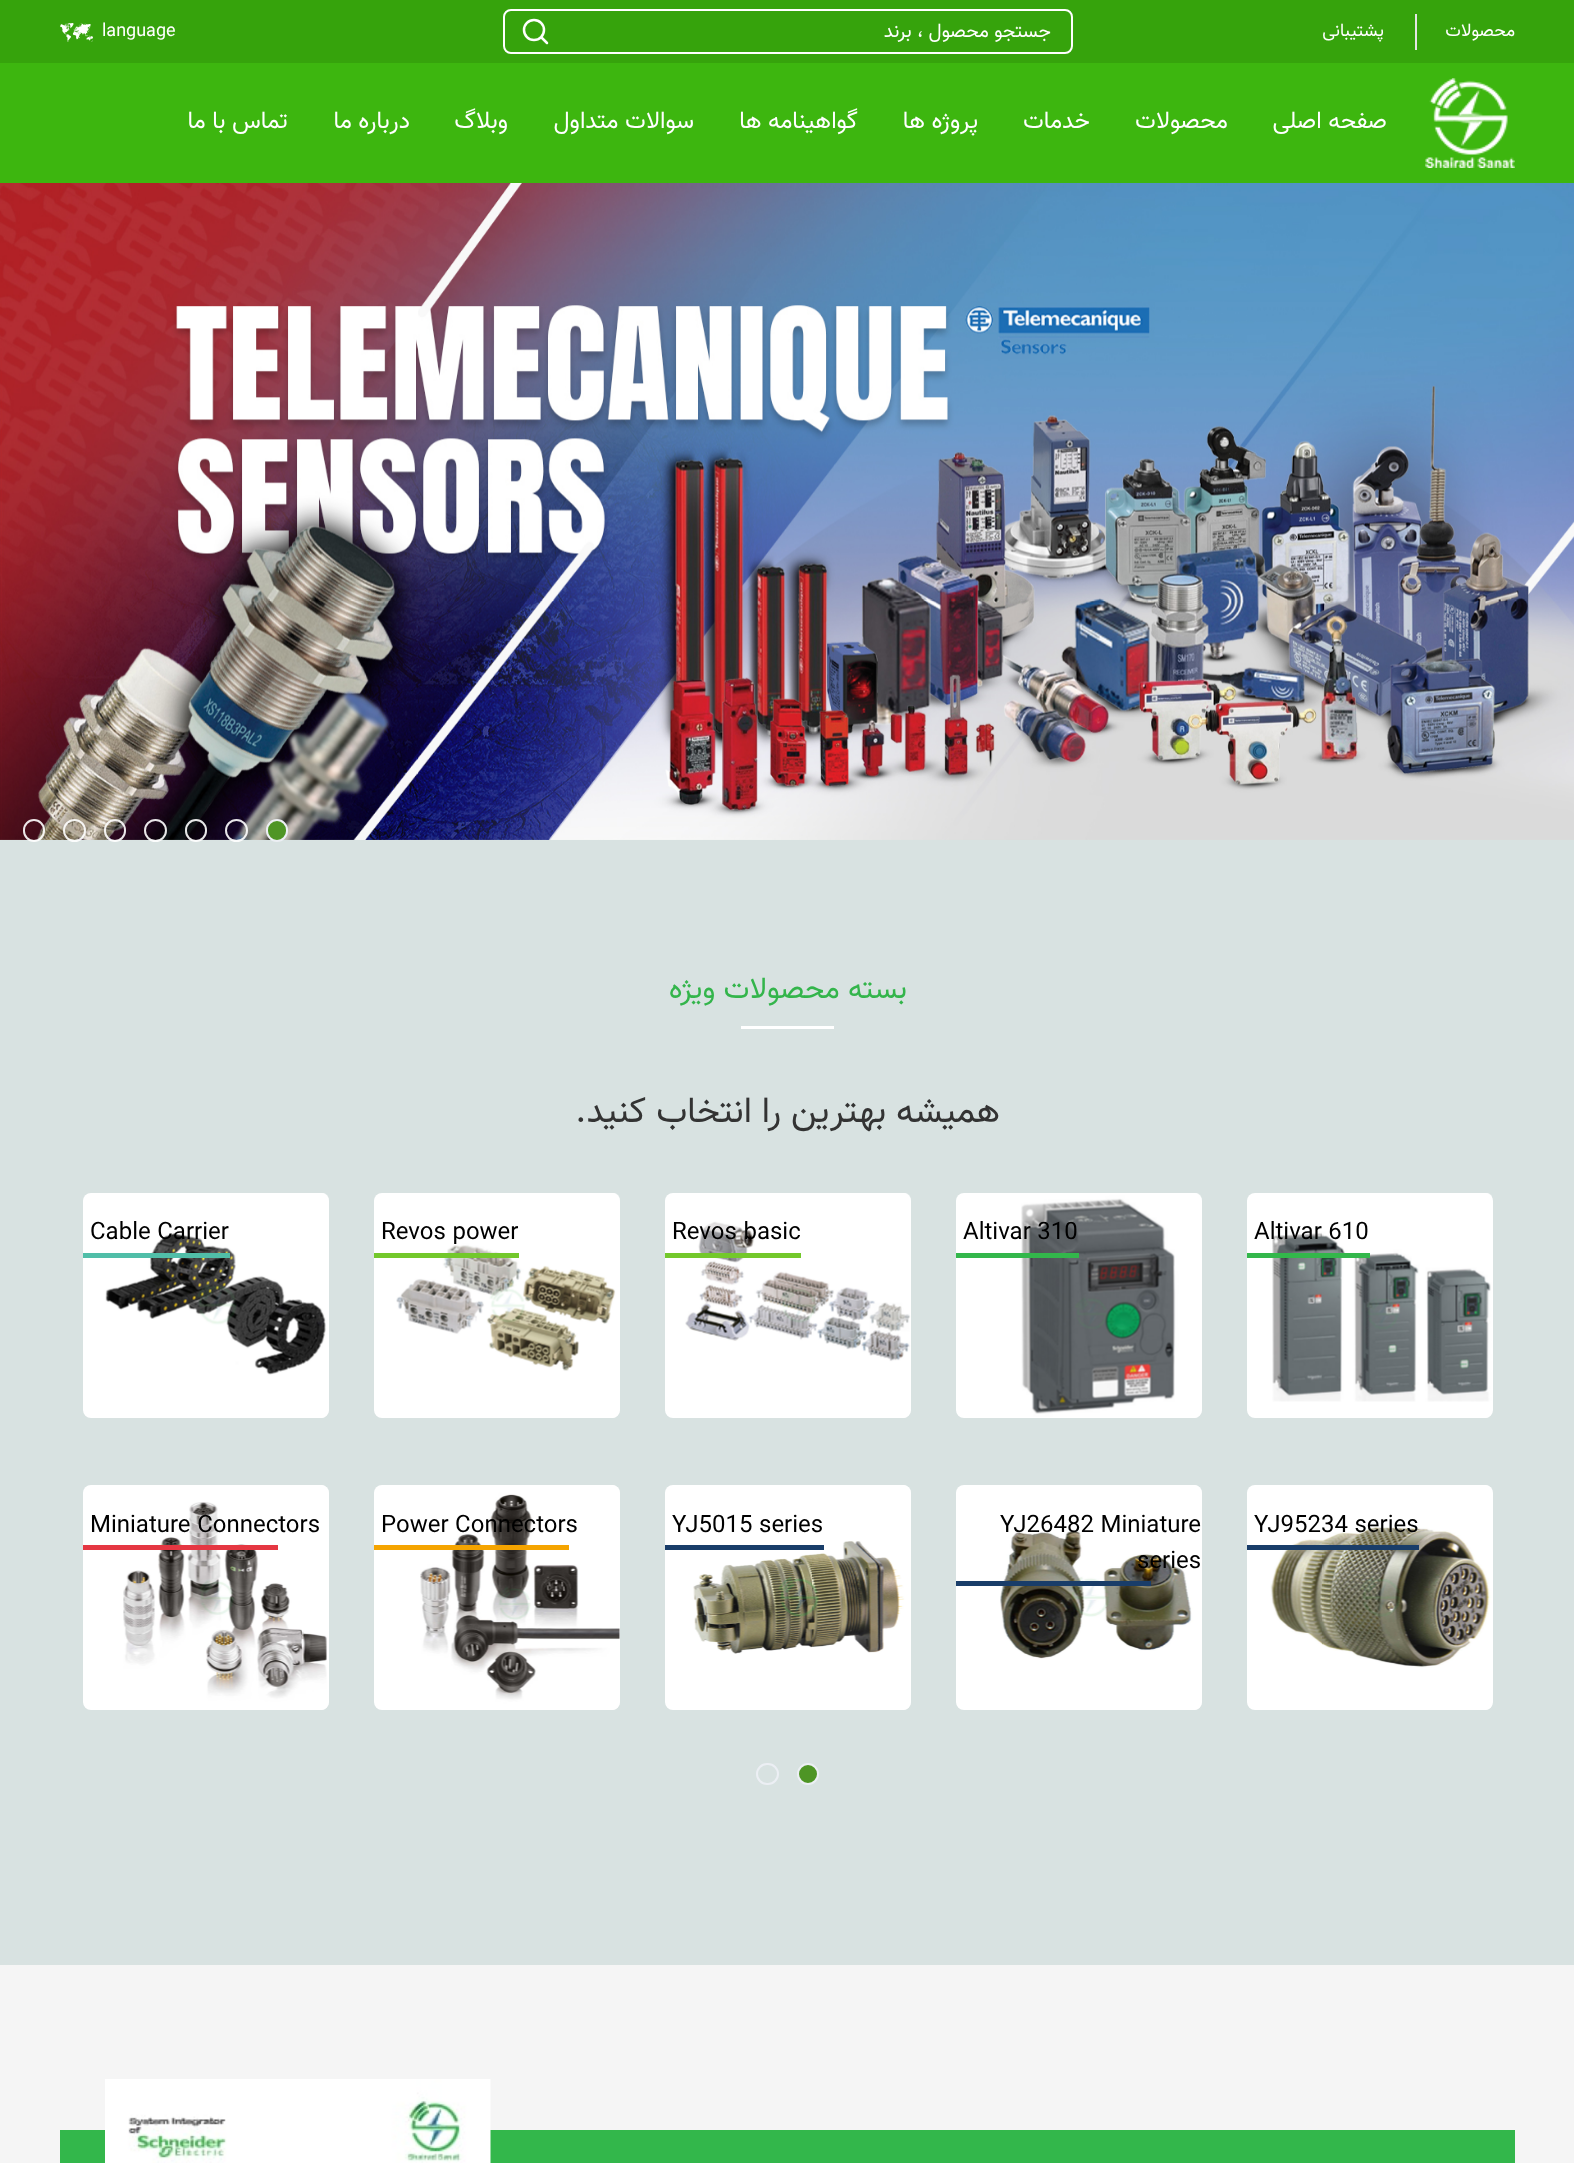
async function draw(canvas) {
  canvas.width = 1574
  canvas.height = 2163
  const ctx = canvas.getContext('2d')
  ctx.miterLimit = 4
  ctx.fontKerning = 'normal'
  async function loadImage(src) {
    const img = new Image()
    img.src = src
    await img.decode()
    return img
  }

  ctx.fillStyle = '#d8e2e1'
  ctx.fillRect(0, 0, 1574, 2163)
  ctx.fillStyle = '#36a30c'
  ctx.fillRect(0, 0, 1574, 63)
  ctx.direction = 'rtl'
  ctx.font = '18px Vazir'
  ctx.fillStyle = '#fff'
  ctx.fillText('محصولات', 1515, 36)
  ctx.fillStyle = '#e5e5e5'
  ctx.fillRect(1415, 14, 2, 36)
  ctx.fillStyle = '#fff'
  ctx.fillText('پشتیبانی', 1384, 36)
  ctx.beginPath()
  ctx.roundRect(504, 10, 568, 43, 7)
  ctx.strokeStyle = '#fff'
  ctx.lineWidth = 2
  ctx.stroke()
  ctx.beginPath()
  ctx.arc(534, 30, 10, 0, 2 * Math.PI)
  ctx.lineWidth = 2.5
  ctx.stroke()
  ctx.beginPath()
  ctx.moveTo(547, 43)
  ctx.lineTo(542, 38)
  ctx.lineCap = 'round'
  ctx.lineJoin = 'round'
  ctx.stroke()
  ctx.font = '19.5px Vazir'
  ctx.fillText('جستجو محصول ، برند', 1051, 37)
  ctx.direction = 'ltr'
  ctx.font = '18px Vazir'
  ctx.fillText('language', 102, 36)
  ctx.drawImage(await loadImage('image0.png'), 60, 23, 33, 19)
  ctx.fillStyle = '#3db60f'
  ctx.fillRect(0, 63, 1574, 120)
  ctx.drawImage(await loadImage('image1.png'), 1425, 78, 90, 90)
  ctx.direction = 'rtl'
  ctx.font = '24px Vazir'
  ctx.fillStyle = '#fff'
  ctx.fillText('صفحه اصلی', 1387, 128)
  ctx.fillText('محصولات', 1228, 128)
  ctx.fillText('خدمات', 1090, 128)
  ctx.fillText('پروژه ها', 978, 128)
  ctx.fillText('گواهینامه ها', 858, 128)
  ctx.fillText('سوالات متداول', 694, 128)
  ctx.fillText('وبلاگ', 508, 128)
  ctx.fillText('درباره ما', 410, 128)
  ctx.fillText('تماس با ما', 288, 128)
  ctx.drawImage(await loadImage('image2.png'), 0, 183, 1574, 657)
  ctx.fillStyle = '#4e9525'
  ctx.beginPath()
  ctx.roundRect(267, 820, 20, 21, 10)
  ctx.fill()
  ctx.strokeStyle = '#eceff4'
  ctx.lineWidth = 2
  ctx.lineJoin = 'miter'
  ctx.stroke()
  ctx.beginPath()
  ctx.arc(236.5, 830.5, 10.5, 0, 2 * Math.PI)
  ctx.strokeStyle = '#ffffffe6'
  ctx.stroke()
  ctx.beginPath()
  ctx.roundRect(186, 820, 20, 21, 10)
  ctx.stroke()
  ctx.beginPath()
  ctx.arc(155.5, 830.5, 10.5, 0, 2 * Math.PI)
  ctx.stroke()
  ctx.beginPath()
  ctx.roundRect(105, 820, 20, 21, 10)
  ctx.stroke()
  ctx.beginPath()
  ctx.arc(74.5, 830.5, 10.5, 0, 2 * Math.PI)
  ctx.stroke()
  ctx.beginPath()
  ctx.roundRect(24, 820, 20, 21, 10)
  ctx.stroke()
  ctx.font = '30px Vazir'
  ctx.fillStyle = '#33b54b'
  ctx.fillText('بسته محصولات ویژه', 907, 998)
  ctx.fillStyle = '#fff'
  ctx.fillRect(741, 1026, 93, 3)
  ctx.font = '36px Vazir'
  ctx.fillStyle = '#333'
  ctx.fillText('همیشه بهترین را انتخاب کنید.', 1000, 1122)
  ctx.fillStyle = '#fff'
  ctx.beginPath()
  ctx.roundRect(1247, 1193, 246, 225, 8)
  ctx.fill()
  ctx.drawImage(await loadImage('image3.png'), 1272, 1193, 220, 225)
  ctx.direction = 'ltr'
  ctx.font = '24px Vazir'
  ctx.fillStyle = '#000'
  ctx.fillText('Altivar 610', 1254, 1239)
  ctx.fillStyle = '#33b74b'
  ctx.fillRect(1247, 1253, 123, 5)
  ctx.fillStyle = '#fff'
  ctx.beginPath()
  ctx.roundRect(956, 1193, 246, 225, 8)
  ctx.fill()
  ctx.drawImage(await loadImage('image4.png'), 1021, 1193, 181, 225)
  ctx.fillStyle = '#000'
  ctx.fillText('Altivar 310', 963, 1239)
  ctx.fillStyle = '#33b74b'
  ctx.fillRect(956, 1253, 123, 5)
  ctx.fillStyle = '#fff'
  ctx.beginPath()
  ctx.roundRect(665, 1193, 246, 225, 8)
  ctx.fill()
  ctx.drawImage(await loadImage('image5.png'), 685, 1193, 226, 225)
  ctx.fillStyle = '#000'
  ctx.fillText('Revos basic', 672, 1239)
  ctx.fillStyle = '#73c82b'
  ctx.fillRect(665, 1253, 136, 5)
  ctx.fillStyle = '#fff'
  ctx.beginPath()
  ctx.roundRect(374, 1193, 246, 225, 8)
  ctx.fill()
  ctx.drawImage(await loadImage('image6.png'), 396, 1193, 224, 225)
  ctx.fillStyle = '#000'
  ctx.fillText('Revos power', 381, 1239)
  ctx.fillStyle = '#73c82b'
  ctx.fillRect(374, 1253, 145, 5)
  ctx.fillStyle = '#fff'
  ctx.beginPath()
  ctx.roundRect(83, 1193, 246, 225, 8)
  ctx.fill()
  ctx.drawImage(await loadImage('image7.png'), 105, 1193, 224, 225)
  ctx.fillStyle = '#000'
  ctx.fillText('Cable Carrier', 90, 1239)
  ctx.fillStyle = '#50bea8'
  ctx.fillRect(83, 1253, 147, 5)
  ctx.fillStyle = '#fff'
  ctx.beginPath()
  ctx.roundRect(1247, 1485, 246, 225, 8)
  ctx.fill()
  ctx.drawImage(await loadImage('image8.png'), 1270, 1485, 222, 225)
  ctx.fillStyle = '#000'
  ctx.fillText('YJ95234 series', 1254, 1532)
  ctx.fillStyle = '#193d69'
  ctx.fillRect(1247, 1545, 172, 5)
  ctx.fillStyle = '#fff'
  ctx.beginPath()
  ctx.roundRect(956, 1485, 246, 225, 8)
  ctx.fill()
  ctx.drawImage(await loadImage('image9.png'), 1000, 1485, 202, 225)
  ctx.fillStyle = '#000'
  ctx.fillText('YJ26482 Miniature', 1000, 1532)
  ctx.fillText('series', 1137, 1568)
  ctx.fillStyle = '#193d69'
  ctx.fillRect(956, 1581, 195, 5)
  ctx.fillStyle = '#fff'
  ctx.beginPath()
  ctx.roundRect(665, 1485, 246, 225, 8)
  ctx.fill()
  ctx.drawImage(await loadImage('image10.png'), 693, 1485, 218, 225)
  ctx.fillStyle = '#000'
  ctx.fillText('YJ5015 series', 672, 1532)
  ctx.fillStyle = '#193d69'
  ctx.fillRect(665, 1545, 159, 5)
  ctx.fillStyle = '#fff'
  ctx.beginPath()
  ctx.roundRect(374, 1485, 246, 225, 8)
  ctx.fill()
  ctx.drawImage(await loadImage('image11.png'), 420, 1485, 200, 225)
  ctx.fillStyle = '#000'
  ctx.fillText('Power Connectors', 381, 1532)
  ctx.fillStyle = '#f5a400'
  ctx.fillRect(374, 1545, 195, 5)
  ctx.fillStyle = '#fff'
  ctx.beginPath()
  ctx.roundRect(83, 1485, 246, 225, 8)
  ctx.fill()
  ctx.drawImage(await loadImage('image12.png'), 123, 1485, 206, 225)
  ctx.fillStyle = '#000'
  ctx.fillText('Miniature Connectors', 90, 1532)
  ctx.fillStyle = '#e53742'
  ctx.fillRect(83, 1545, 195, 5)
  ctx.fillStyle = '#4e9525'
  ctx.beginPath()
  ctx.arc(808, 1774, 10, 0, 2 * Math.PI)
  ctx.fill()
  ctx.strokeStyle = '#eceff4'
  ctx.stroke()
  ctx.beginPath()
  ctx.roundRect(757, 1764, 21, 20, 10)
  ctx.stroke()
  ctx.fillStyle = '#f5f5f5'
  ctx.fillRect(0, 1965, 1574, 198)
  ctx.fillStyle = '#33b74b'
  ctx.fillRect(60, 2130, 1455, 33)
  ctx.drawImage(await loadImage('image13.png'), 105, 2079, 386, 84)
}

draw(document.querySelector('canvas'))
